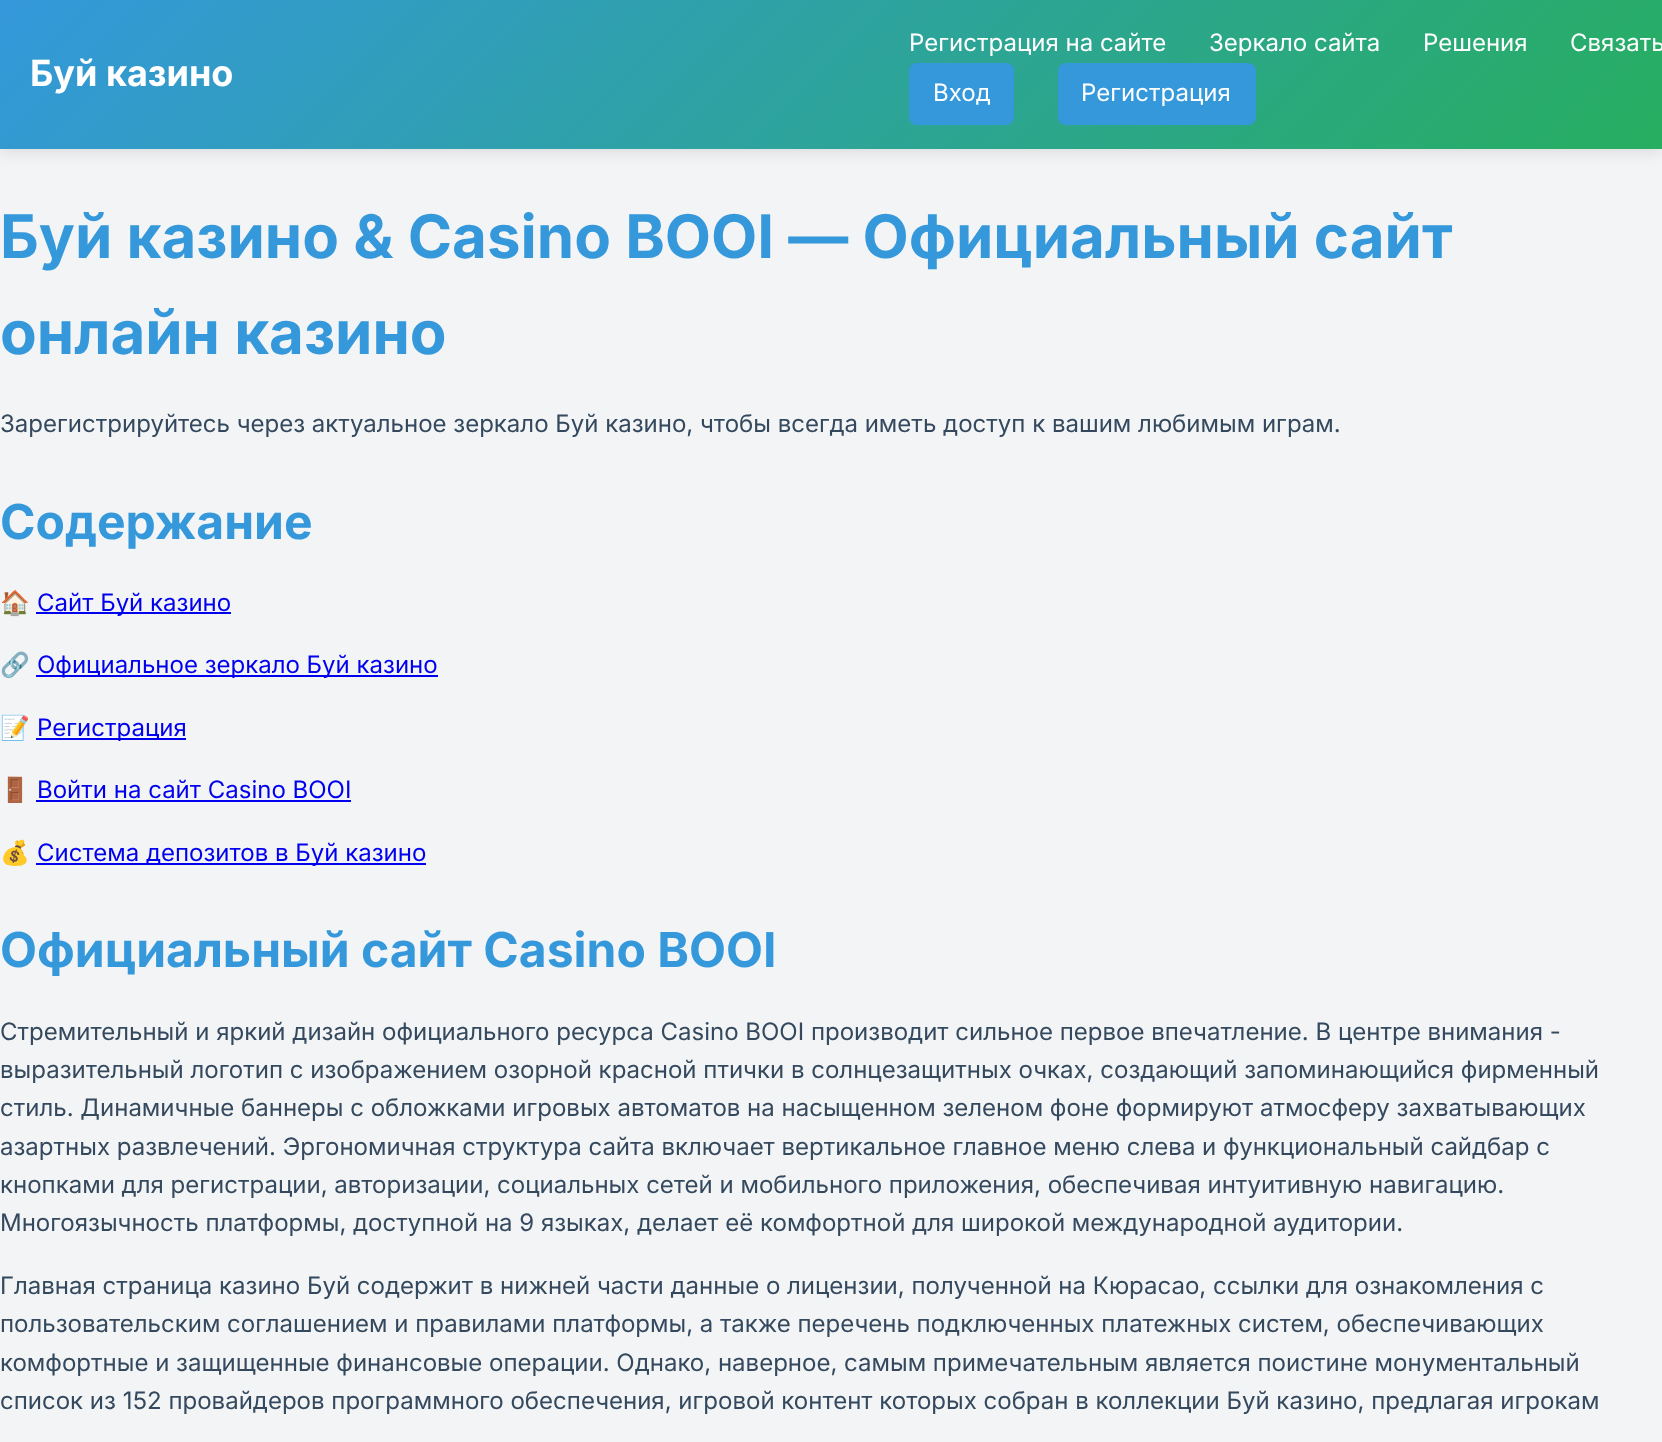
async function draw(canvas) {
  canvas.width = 1662
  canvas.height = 1442
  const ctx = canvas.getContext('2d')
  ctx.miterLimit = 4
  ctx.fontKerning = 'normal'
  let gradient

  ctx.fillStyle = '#f3f4f6'
  ctx.fillRect(0, 0, 1662, 1442)
  ctx.fillStyle = '#0000001a'
  ctx.filter = 'blur(7.5px)'
  ctx.beginPath()
  ctx.rect(0, 3, 1662, 149)
  ctx.fill()
  ctx.filter = 'none'
  gradient = ctx.createLinearGradient(378, -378, 1284, 527)
  gradient.addColorStop(0, '#3498db')
  gradient.addColorStop(1, '#27ae60')
  ctx.fillStyle = gradient
  ctx.fillRect(0, 0, 1662, 149)
  ctx.font = 'bold 36px Inter'
  ctx.fillStyle = '#fff'
  ctx.fillText('Буй казино', 30, 86)
  ctx.font = '24px Inter'
  ctx.fillText('Регистрация на сайте', 909, 51)
  ctx.fillText('Зеркало сайта', 1209, 51)
  ctx.fillText('Решения', 1423, 51)
  ctx.fillText('Связать', 1570, 51)
  ctx.fillStyle = '#3498db'
  ctx.beginPath()
  ctx.roundRect(909, 63, 105, 62, 8)
  ctx.fill()
  ctx.fillStyle = '#fff'
  ctx.fillText('Вход', 933, 101)
  ctx.fillStyle = '#3498db'
  ctx.beginPath()
  ctx.roundRect(1058, 63, 198, 62, 8)
  ctx.fill()
  ctx.fillStyle = '#fff'
  ctx.fillText('Регистрация', 1081, 101)
  ctx.font = 'bold 60px Inter'
  ctx.fillStyle = '#3498db'
  ctx.fillText('Буй казино & Casino BOOI — Официальный сайт', 0, 258)
  ctx.fillText('онлайн казино', 0, 354)
  ctx.font = '24px Inter'
  ctx.fillStyle = '#34495e'
  ctx.fillText('Зарегистрируйтесь через актуальное зеркало Буй казино, чтобы всегда иметь доступ к вашим любимым играм.', 0, 432)
  ctx.font = 'bold 48px Inter'
  ctx.fillStyle = '#3498db'
  ctx.fillText('Содержание', 0, 539)
  ctx.font = '24px Noto Color Emoji'
  ctx.fillStyle = '#34495e'
  ctx.fillText('🏠', 0, 611)
  ctx.fillStyle = '#00e'
  ctx.fillRect(36, 612, 195, 2)
  ctx.font = '24px Inter'
  ctx.fillText('Сайт Буй казино', 37, 611)
  ctx.font = '24px Noto Color Emoji'
  ctx.fillStyle = '#34495e'
  ctx.fillText('🔗', 0, 673)
  ctx.fillStyle = '#00e'
  ctx.fillRect(36, 675, 402, 2)
  ctx.font = '24px Inter'
  ctx.fillText('Официальное зеркало Буй казино', 37, 673)
  ctx.font = '24px Noto Color Emoji'
  ctx.fillStyle = '#34495e'
  ctx.fillText('📝', 0, 736)
  ctx.fillStyle = '#00e'
  ctx.fillRect(36, 738, 150, 2)
  ctx.font = '24px Inter'
  ctx.fillText('Регистрация', 37, 736)
  ctx.font = '24px Noto Color Emoji'
  ctx.fillStyle = '#34495e'
  ctx.fillText('🚪', 0, 798)
  ctx.font = '24px Inter'
  ctx.fillStyle = '#00e'
  ctx.fillText('Войти на сайт Casino BOOI', 37, 798)
  ctx.fillRect(36, 800, 315, 2)
  ctx.font = '24px Noto Color Emoji'
  ctx.fillStyle = '#34495e'
  ctx.fillText('💰', 0, 861)
  ctx.fillStyle = '#00e'
  ctx.fillRect(36, 863, 390, 2)
  ctx.font = '24px Inter'
  ctx.fillText('Система депозитов в Буй казино', 37, 861)
  ctx.font = 'bold 48px Inter'
  ctx.fillStyle = '#3498db'
  ctx.fillText('Официальный сайт Casino BOOI', 0, 967)
  ctx.font = '24px Inter'
  ctx.fillStyle = '#34495e'
  ctx.fillText('Стремительный и яркий дизайн официального ресурса Casino BOOI производит сильное первое впечатление. В центре внимания -', 0, 1040)
  ctx.fillText('выразительный логотип с изображением озорной красной птички в солнцезащитных очках, создающий запоминающийся фирменный', 0, 1078)
  ctx.fillText('стиль. Динамичные баннеры с обложками игровых автоматов на насыщенном зеленом фоне формируют атмосферу захватывающих', 0, 1116)
  ctx.fillText('азартных развлечений. Эргономичная структура сайта включает вертикальное главное меню слева и функциональный сайдбар с', 0, 1155)
  ctx.fillText('кнопками для регистрации, авторизации, социальных сетей и мобильного приложения, обеспечивая интуитивную навигацию.', 0, 1193)
  ctx.fillText('Многоязычность платформы, доступной на 9 языках, делает её комфортной для широкой международной аудитории.', 0, 1231)
  ctx.fillText('Главная страница казино Буй содержит в нижней части данные о лицензии, полученной на Кюрасао, ссылки для ознакомления с', 0, 1294)
  ctx.fillText('пользовательским соглашением и правилами платформы, а также перечень подключенных платежных систем, обеспечивающих', 0, 1332)
  ctx.fillText('комфортные и защищенные финансовые операции. Однако, наверное, самым примечательным является поистине монументальный', 0, 1371)
  ctx.fillText('список из 152 провайдеров программного обеспечения, игровой контент которых собран в коллекции Буй казино, предлагая игрокам', 0, 1409)
}

draw(document.querySelector('canvas'))
